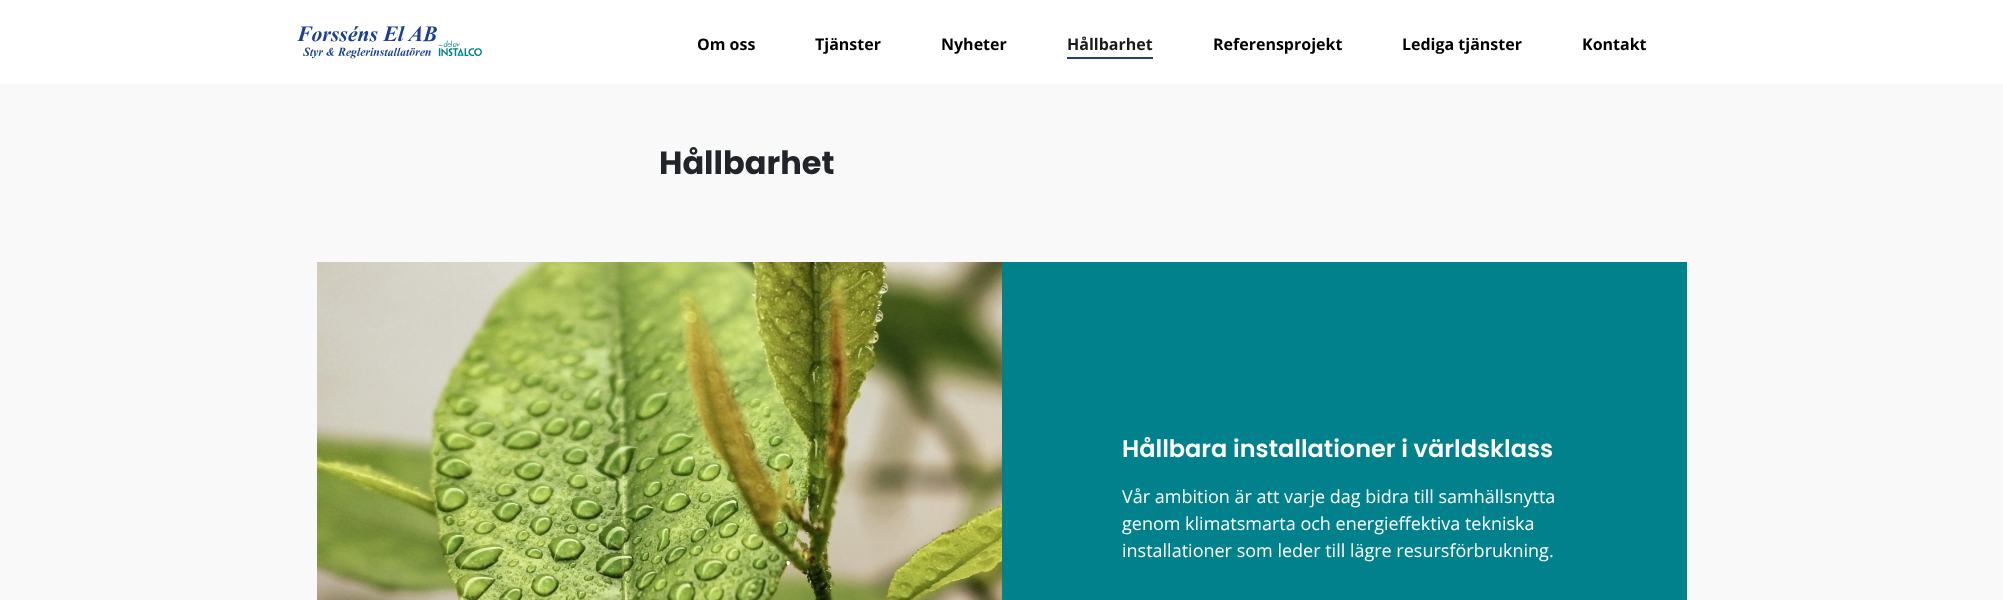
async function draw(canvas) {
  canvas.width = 2003
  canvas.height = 600
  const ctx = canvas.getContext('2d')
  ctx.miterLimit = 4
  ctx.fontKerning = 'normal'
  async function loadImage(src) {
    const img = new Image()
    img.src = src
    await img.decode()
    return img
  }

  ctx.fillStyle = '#f9f9f9'
  ctx.fillRect(0, 0, 2003, 600)
  ctx.fillStyle = '#fff'
  ctx.fillRect(0, 0, 2003, 84)
  ctx.drawImage(await loadImage('image0.png'), 297, 26, 185, 33)
  ctx.font = 'bold 16px Open Sans'
  ctx.fillStyle = '#000'
  ctx.fillText('Om oss', 697, 50)
  ctx.fillText('Tjänster', 815, 50)
  ctx.fillText('Nyheter', 941, 50)
  ctx.fillStyle = '#1a1a1a'
  ctx.fillText('Hållbarhet', 1067, 50)
  ctx.fillStyle = '#1c3f92'
  ctx.fillRect(1067, 57, 86, 2)
  ctx.fillStyle = '#000'
  ctx.fillText('Referensprojekt', 1213, 50)
  ctx.fillText('Lediga tjänster', 1402, 50)
  ctx.fillText('Kontakt', 1582, 50)
  ctx.font = 'bold 32px Poppins'
  ctx.fillStyle = '#212529'
  ctx.fillText('Hållbarhet', 659, 174)
  ctx.drawImage(await loadImage('image1.png'), 317, 262, 685, 338)
  ctx.fillStyle = '#00818c'
  ctx.fillRect(1002, 262, 685, 338)
  ctx.font = '600 24px Poppins'
  ctx.fillStyle = '#fff'
  ctx.fillText('Hållbara installationer i världsklass', 1122, 457)
  ctx.font = '18px Open Sans'
  ctx.fillText('Vår ambition är att varje dag bidra till samhällsnytta', 1122, 503)
  ctx.fillText('genom klimatsmarta och energieffektiva tekniska', 1122, 530)
  ctx.fillText('installationer som leder till lägre resursförbrukning.', 1122, 557)
}

draw(document.querySelector('canvas'))
